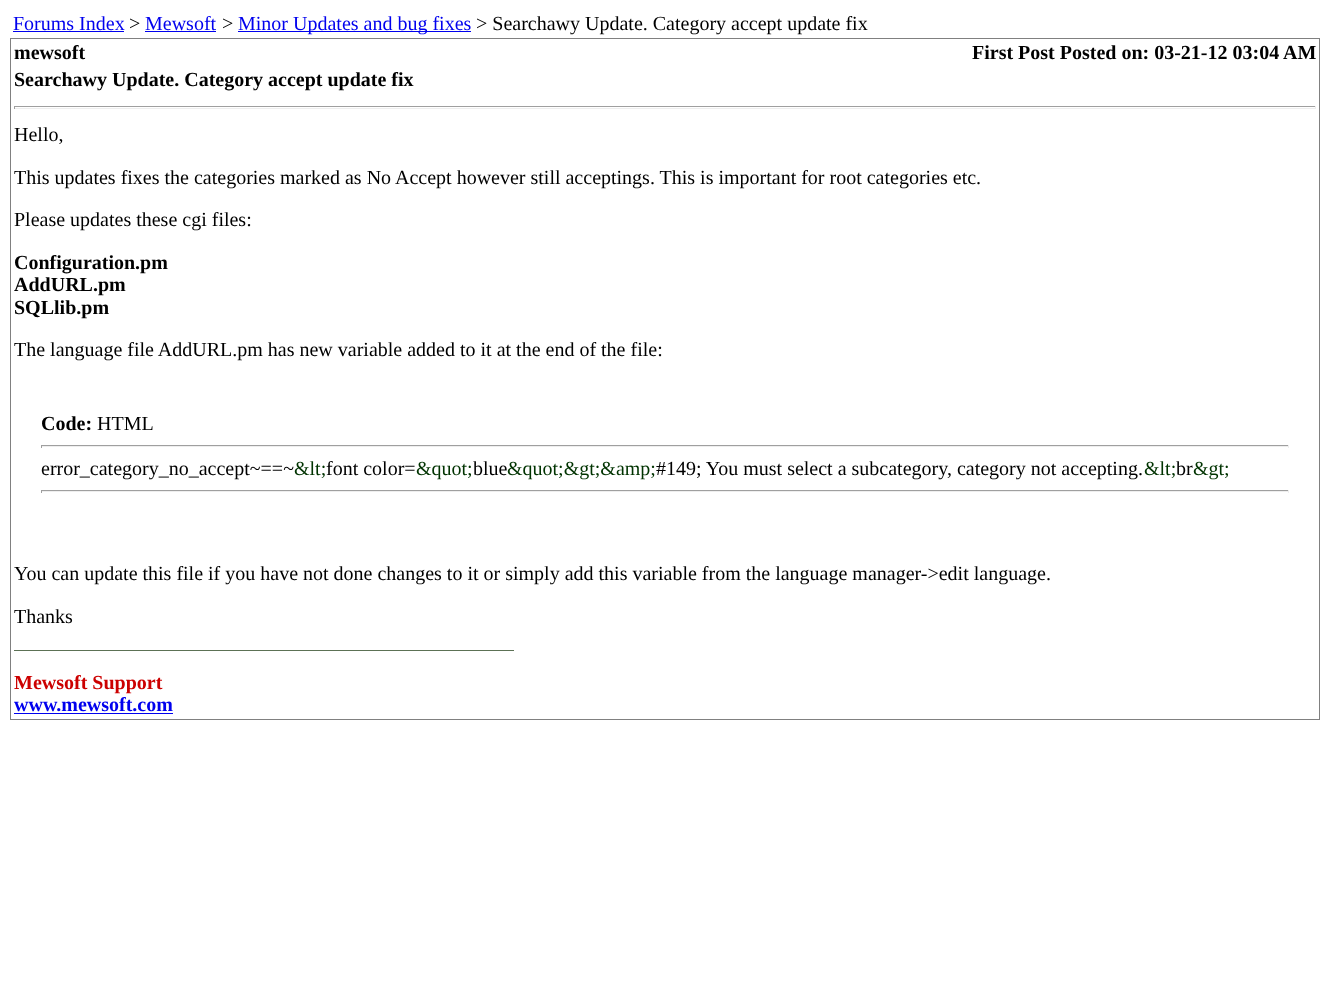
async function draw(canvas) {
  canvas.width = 1330
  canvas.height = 1004
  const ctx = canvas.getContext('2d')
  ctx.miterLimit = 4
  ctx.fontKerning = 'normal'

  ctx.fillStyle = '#fff'
  ctx.fillRect(0, 0, 1330, 1004)
  ctx.font = '20px Liberation Serif'
  ctx.fillStyle = '#00e'
  ctx.fillText('Forums Index', 13, 30)
  ctx.fillRect(13, 31, 111, 1)
  ctx.fillStyle = '#000'
  ctx.fillText('>', 129, 30)
  ctx.fillStyle = '#00e'
  ctx.fillText('Mewsoft', 145, 30)
  ctx.fillRect(145, 31, 71, 1)
  ctx.fillStyle = '#000'
  ctx.fillText('>', 222, 30)
  ctx.fillStyle = '#00e'
  ctx.fillRect(238, 31, 233, 1)
  ctx.fillText('Minor Updates and bug fixes', 238, 30)
  ctx.fillStyle = '#000'
  ctx.fillText('> Searchawy Update. Category accept update fix', 476, 30)
  ctx.fillStyle = '#808080'
  ctx.fillRect(10, 38, 1310, 1)
  ctx.fillRect(1319, 38, 1, 682)
  ctx.fillRect(10, 719, 1310, 1)
  ctx.fillRect(10, 38, 1, 682)
  ctx.font = 'bold 20px Liberation Serif'
  ctx.fillStyle = '#000'
  ctx.fillText('mewsoft', 14, 59)
  ctx.fillText('First Post Posted on: 03-21-12 03:04 AM', 972, 59)
  ctx.fillText('Searchawy Update. Category accept update fix', 14, 86)
  ctx.fillStyle = '#9f9f9f'
  ctx.fillRect(14, 106, 1302, 1)
  ctx.fillStyle = '#eee'
  ctx.fillRect(1315, 106, 1, 3)
  ctx.fillRect(14, 108, 1302, 1)
  ctx.fillStyle = '#9f9f9f'
  ctx.fillRect(14, 106, 1, 3)
  ctx.font = '20px Liberation Serif'
  ctx.fillStyle = '#000'
  ctx.fillText('Hello,', 14, 141)
  ctx.fillText('This updates fixes the categories marked as No Accept however still acceptings. This is important for root categories etc.', 14, 184)
  ctx.fillText('Please updates these cgi files:', 14, 226)
  ctx.font = 'bold 20px Liberation Serif'
  ctx.fillText('Configuration.pm', 14, 269)
  ctx.fillText('AddURL.pm', 14, 291)
  ctx.fillText('SQLlib.pm', 14, 314)
  ctx.font = '20px Liberation Serif'
  ctx.fillText('The language file AddURL.pm has new variable added to it at the end of the file:', 14, 356)
  ctx.font = 'bold 20px Liberation Serif'
  ctx.fillText('Code:', 41, 430)
  ctx.font = '20px Liberation Serif'
  ctx.fillText('HTML', 97, 430)
  ctx.fillStyle = '#9f9f9f'
  ctx.fillRect(41, 445, 1248, 1)
  ctx.fillStyle = '#eee'
  ctx.fillRect(1288, 445, 1, 3)
  ctx.fillRect(41, 446, 1248, 1)
  ctx.fillStyle = '#9f9f9f'
  ctx.fillRect(41, 445, 1, 3)
  ctx.fillStyle = '#000'
  ctx.fillText('error_category_no_accept~==~', 41, 475)
  ctx.fillStyle = '#030'
  ctx.fillText('&lt;', 294, 475)
  ctx.fillStyle = '#000'
  ctx.fillText('font color=', 326, 475)
  ctx.fillStyle = '#030'
  ctx.fillText('&quot;', 416, 475)
  ctx.fillStyle = '#000'
  ctx.fillText('blue', 473, 475)
  ctx.fillStyle = '#030'
  ctx.fillText('&quot;&gt;&amp;', 507, 475)
  ctx.fillStyle = '#000'
  ctx.fillText('#149; You must select a subcategory, category not accepting.', 656, 475)
  ctx.fillStyle = '#030'
  ctx.fillText('&lt;', 1144, 475)
  ctx.fillStyle = '#000'
  ctx.fillText('br', 1176, 475)
  ctx.fillStyle = '#030'
  ctx.fillText('&gt;', 1193, 475)
  ctx.fillStyle = '#9f9f9f'
  ctx.fillRect(41, 490, 1248, 1)
  ctx.fillStyle = '#eee'
  ctx.fillRect(1288, 490, 1, 3)
  ctx.fillRect(41, 491, 1248, 1)
  ctx.fillStyle = '#9f9f9f'
  ctx.fillRect(41, 490, 1, 3)
  ctx.fillStyle = '#000'
  ctx.fillText('You can update this file if you have not done changes to it or simply add this variable from the language manager->edit language.', 14, 580)
  ctx.fillText('Thanks', 14, 623)
  ctx.fillStyle = '#5c7155'
  ctx.fillRect(14, 650, 500, 1)
  ctx.font = 'bold 20px Liberation Serif'
  ctx.fillStyle = '#c00'
  ctx.fillText('Mewsoft Support', 14, 689)
  ctx.fillStyle = '#00e'
  ctx.fillText('www.mewsoft.com', 14, 711)
  ctx.fillRect(14, 713, 159, 1)
}

draw(document.querySelector('canvas'))
